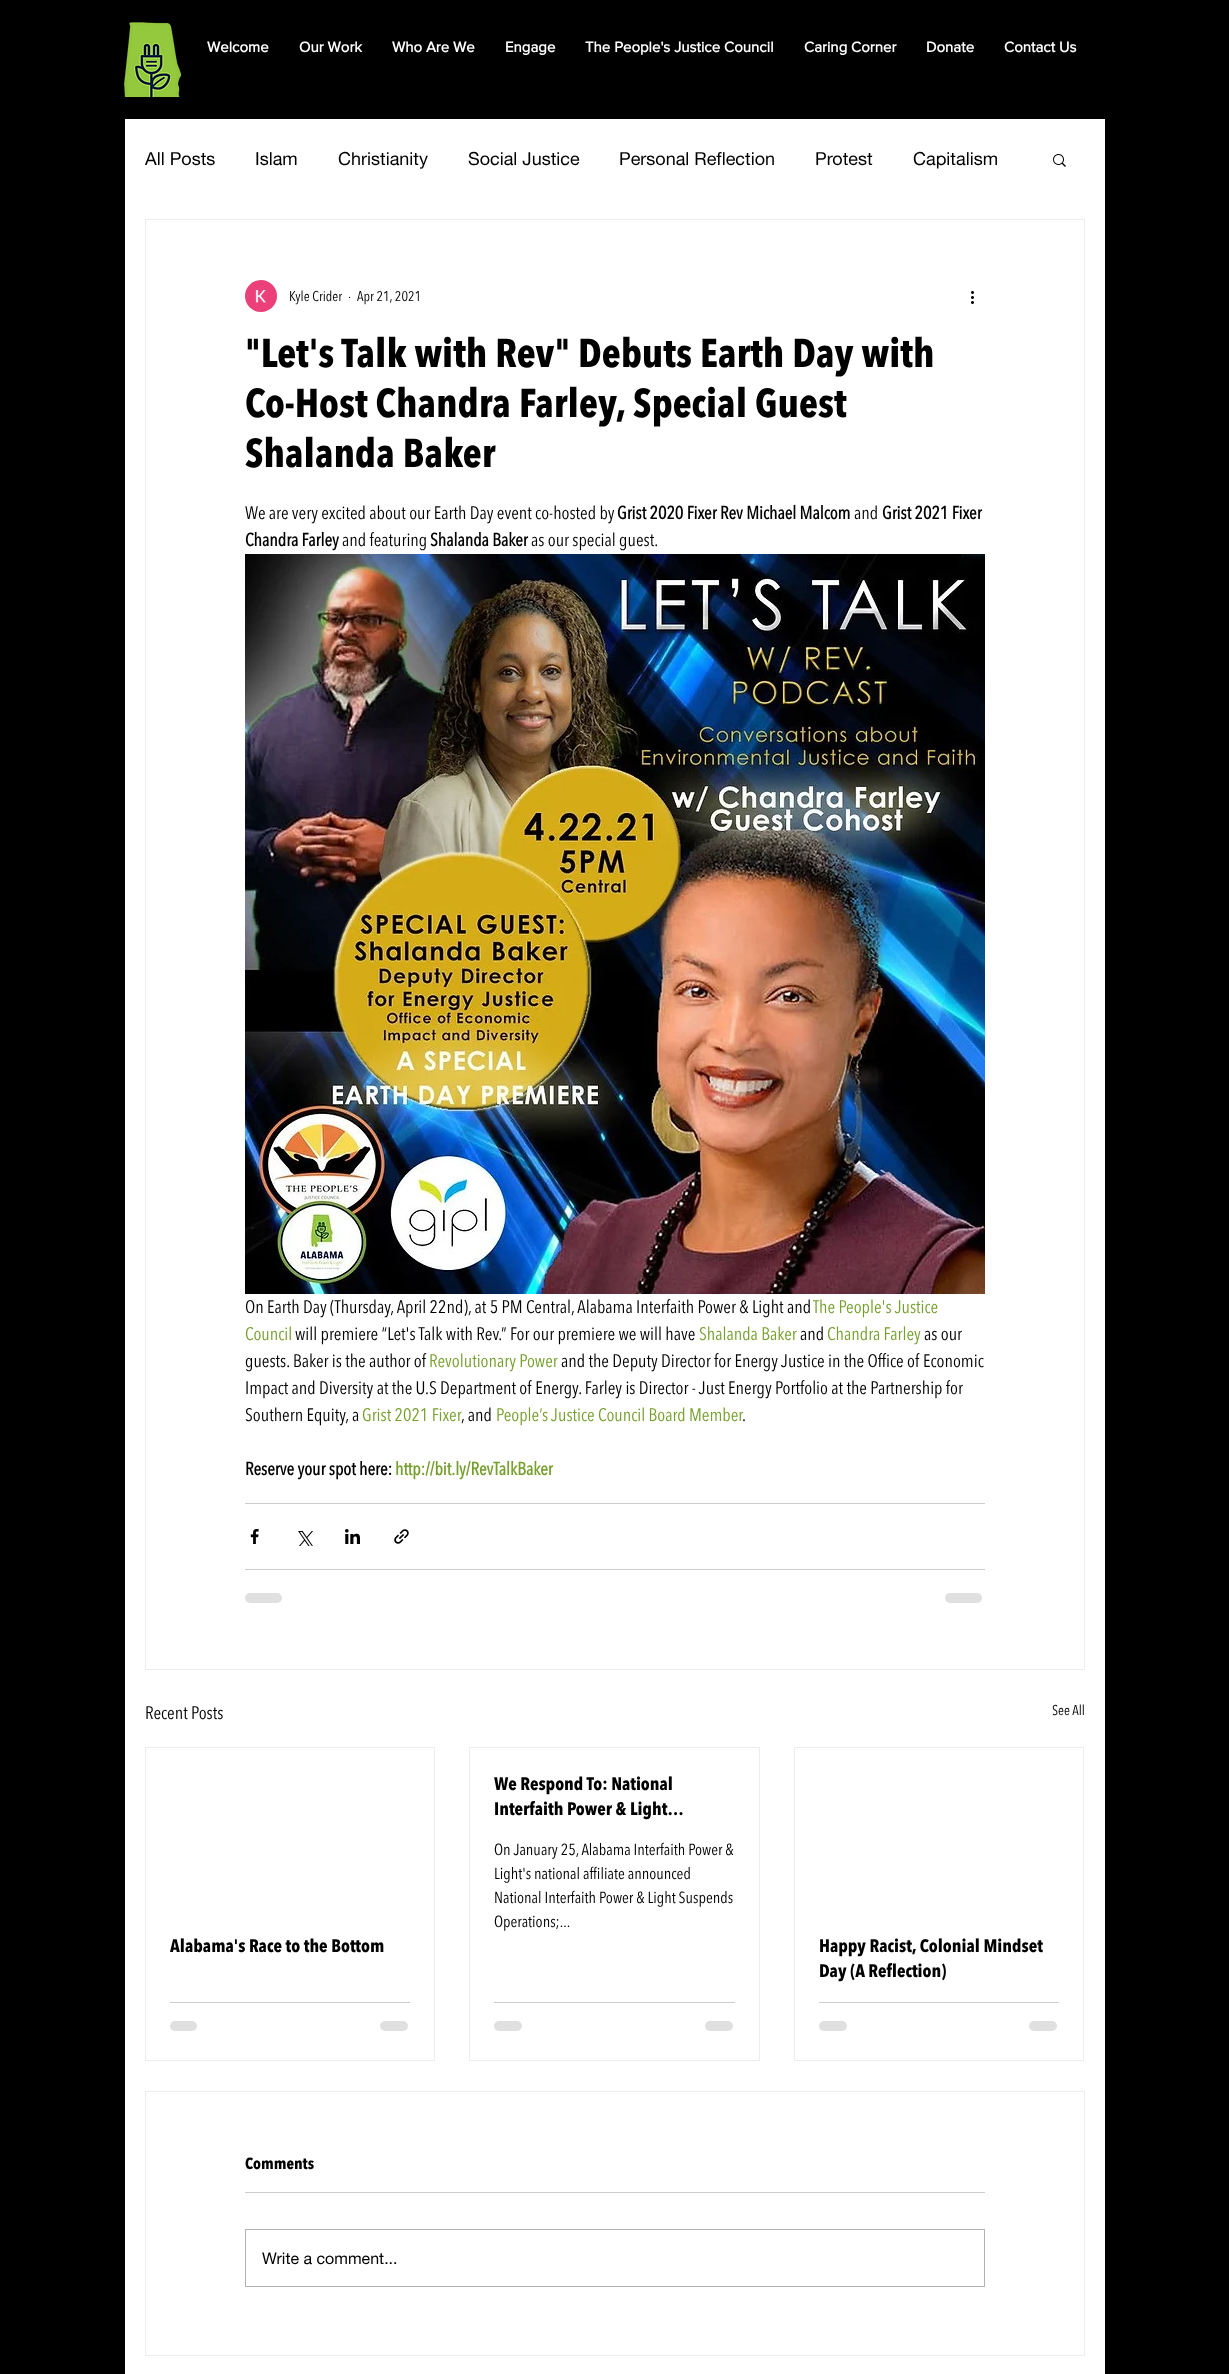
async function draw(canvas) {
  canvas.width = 1229
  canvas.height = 2374
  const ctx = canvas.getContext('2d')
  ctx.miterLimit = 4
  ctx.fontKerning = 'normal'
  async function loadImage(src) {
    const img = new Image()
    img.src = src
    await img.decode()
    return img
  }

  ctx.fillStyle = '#000'
  ctx.fillRect(0, 0, 1229, 2374)
  ctx.drawImage(await loadImage('image0.png'), 124, 22, 58, 75)
  ctx.font = 'bold 15px "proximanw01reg"'
  ctx.fillStyle = '#fff'
  ctx.fillText('Welcome', 207, 52)
  ctx.fillText('Our Work', 299, 52)
  ctx.fillText('Who Are We', 392, 52)
  ctx.fillText('Engage', 505, 52)
  ctx.fillText('The People\'s Justice Council', 585, 52)
  ctx.fillText('Caring Corner', 804, 52)
  ctx.fillText('Donate', 926, 52)
  ctx.fillText('Contact Us', 1004, 52)
  ctx.fillRect(125, 119, 980, 2255)
  ctx.font = '18px helvetica neue'
  ctx.fillStyle = '#000'
  ctx.fillText('All Posts', 145, 165)
  ctx.fillText('Islam', 255, 165)
  ctx.fillText('Christianity', 338, 165)
  ctx.fillText('Social Justice', 468, 165)
  ctx.fillText('Personal Reflection', 619, 165)
  ctx.fillText('Protest', 815, 165)
  ctx.fillText('Capitalism', 913, 165)
  ctx.drawImage(await loadImage('image1.png'), 1053, 154, 13, 13)
  ctx.strokeStyle = '#eeecec'
  ctx.strokeRect(145.5, 219.5, 939, 1450)
  ctx.drawImage(await loadImage('image2.png'), 245, 280, 32, 32)
  ctx.font = '14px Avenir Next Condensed'
  ctx.fillText('Kyle Crider', 289, 301)
  ctx.fillText('·', 348, 301)
  ctx.fillText('Apr 21, 2021', 357, 301)
  ctx.drawImage(await loadImage('image3.png'), 971, 291, 3, 13)
  ctx.font = 'bold 40px Avenir Next Condensed'
  ctx.fillText('"Let\'s Talk with Rev" Debuts Earth Day with', 245, 367)
  ctx.fillText('Co-Host Chandra Farley, Special Guest', 245, 417)
  ctx.fillText('Shalanda Baker', 245, 467)
  ctx.font = '18px Avenir Next Condensed'
  ctx.fillText('We are very excited about our Earth Day event co-hosted by', 245, 519)
  ctx.font = 'bold 18px "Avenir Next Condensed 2"'
  ctx.fillText('Grist 2020 Fixer Rev Michael Malcom', 617, 519)
  ctx.font = '18px Avenir Next Condensed'
  ctx.fillText('and', 854, 519)
  ctx.font = 'bold 18px "Avenir Next Condensed 2"'
  ctx.fillText('Grist 2021 Fixer', 882, 519)
  ctx.fillText('Chandra Farley', 245, 546)
  ctx.font = '18px Avenir Next Condensed'
  ctx.fillText('and featuring', 342, 546)
  ctx.font = 'bold 18px "Avenir Next Condensed 2"'
  ctx.fillText('Shalanda Baker', 430, 546)
  ctx.font = '18px Avenir Next Condensed'
  ctx.fillText('as our special guest.', 531, 546)
  ctx.drawImage(await loadImage('image4.png'), 245, 554, 740, 740)
  ctx.fillText('On Earth Day (Thursday, April 22nd), at 5 PM Central, Alabama Interfaith Power & Light and', 245, 1313)
  ctx.fillStyle = '#759f2d'
  ctx.fillText('The People\'s Justice', 813, 1313)
  ctx.fillText('Council', 245, 1340)
  ctx.fillStyle = '#000'
  ctx.fillText('will premiere “Let\'s Talk with Rev.” For our premiere we will have', 295, 1340)
  ctx.fillStyle = '#759f2d'
  ctx.fillText('Shalanda Baker', 699, 1340)
  ctx.fillStyle = '#000'
  ctx.fillText('and', 800, 1340)
  ctx.fillStyle = '#759f2d'
  ctx.fillText('Chandra Farley', 827, 1340)
  ctx.fillStyle = '#000'
  ctx.fillText('as our', 924, 1340)
  ctx.fillText('guests. Baker is the author of', 245, 1367)
  ctx.fillStyle = '#759f2d'
  ctx.fillText('Revolutionary Power', 429, 1367)
  ctx.fillStyle = '#000'
  ctx.fillText('and the Deputy Director for Energy Justice in the Office of Economic', 561, 1367)
  ctx.fillText('Impact and Diversity at the U.S Department of Energy. Farley is Director - Just Energy Portfolio at the Partnership for', 245, 1394)
  ctx.fillText('Southern Equity, a', 245, 1421)
  ctx.fillStyle = '#759f2d'
  ctx.fillText('Grist 2021 Fixer', 362, 1421)
  ctx.fillStyle = '#000'
  ctx.fillText(', and', 461, 1421)
  ctx.fillStyle = '#759f2d'
  ctx.fillText('People’s Justice Council Board Member', 496, 1421)
  ctx.fillStyle = '#000'
  ctx.fillText('.', 742, 1421)
  ctx.font = 'bold 18px "Avenir Next Condensed 2"'
  ctx.fillText('Reserve your spot here:', 245, 1475)
  ctx.fillStyle = '#759f2d'
  ctx.fillText('http://bit.ly/RevTalkBaker', 395, 1475)
  ctx.fillStyle = '#ccc'
  ctx.fillRect(245, 1503, 740, 1)
  ctx.drawImage(await loadImage('image5.png'), 250, 1529, 9, 15)
  ctx.drawImage(await loadImage('image6.png'), 298, 1531, 15, 15)
  ctx.drawImage(await loadImage('image7.png'), 345, 1529, 15, 15)
  ctx.drawImage(await loadImage('image8.png'), 394, 1529, 15, 15)
  ctx.fillRect(245, 1569, 740, 1)
  ctx.fillStyle = '#e0e0e0'
  ctx.beginPath()
  ctx.roundRect(245, 1593, 37, 10, 5)
  ctx.fill()
  ctx.beginPath()
  ctx.roundRect(945, 1593, 37, 10, 5)
  ctx.fill()
  ctx.font = '18px Avenir Next Condensed'
  ctx.fillStyle = '#000'
  ctx.fillText('Recent Posts', 145, 1719)
  ctx.font = '14px Avenir Next Condensed'
  ctx.fillText('See All', 1052, 1715)
  ctx.strokeRect(469.5, 1747.5, 290, 313)
  ctx.font = 'bold 18px Avenir Next Condensed'
  ctx.fillText('We Respond To: National', 494, 1790)
  ctx.fillText('Interfaith Power & Light…', 494, 1815)
  ctx.font = '16px Avenir Next Condensed'
  ctx.fillText('On January 25, Alabama Interfaith Power &', 494, 1855)
  ctx.fillText('Light\'s national affiliate announced', 494, 1879)
  ctx.fillText('National Interfaith Power & Light Suspends', 494, 1903)
  ctx.fillText('Operations;...', 494, 1927)
  ctx.fillStyle = '#ccc'
  ctx.fillRect(494, 2002, 241, 1)
  ctx.fillStyle = '#e0e0e0'
  ctx.beginPath()
  ctx.roundRect(494, 2021, 28, 10, 5)
  ctx.fill()
  ctx.beginPath()
  ctx.roundRect(705, 2021, 28, 10, 5)
  ctx.fill()
  ctx.strokeRect(145.5, 1747.5, 289, 313)
  ctx.font = 'bold 18px Avenir Next Condensed'
  ctx.fillStyle = '#000'
  ctx.fillText('Alabama\'s Race to the Bottom', 170, 1952)
  ctx.fillStyle = '#ccc'
  ctx.fillRect(170, 2002, 240, 1)
  ctx.fillStyle = '#e0e0e0'
  ctx.beginPath()
  ctx.roundRect(170, 2021, 27, 10, 5)
  ctx.fill()
  ctx.beginPath()
  ctx.roundRect(380, 2021, 28, 10, 5)
  ctx.fill()
  ctx.strokeRect(794.5, 1747.5, 289, 313)
  ctx.fillStyle = '#000'
  ctx.fillText('Happy Racist, Colonial Mindset', 819, 1952)
  ctx.fillText('Day (A Reflection)', 819, 1977)
  ctx.fillStyle = '#ccc'
  ctx.fillRect(819, 2002, 240, 1)
  ctx.fillStyle = '#e0e0e0'
  ctx.beginPath()
  ctx.roundRect(819, 2021, 28, 10, 5)
  ctx.fill()
  ctx.beginPath()
  ctx.roundRect(1029, 2021, 28, 10, 5)
  ctx.fill()
  ctx.strokeRect(145.5, 2091.5, 939, 264)
  ctx.font = 'bold 16px Avenir Next Condensed'
  ctx.fillStyle = '#000'
  ctx.fillText('Comments', 245, 2169)
  ctx.fillStyle = '#ccc'
  ctx.fillRect(245, 2192, 740, 1)
  ctx.strokeStyle = '#b3b3b3'
  ctx.strokeRect(245.5, 2229.5, 739, 57)
  ctx.font = '16px helvetica neue'
  ctx.fillStyle = '#000'
  ctx.fillText('Write a comment...', 262, 2264)
}

draw(document.querySelector('canvas'))
